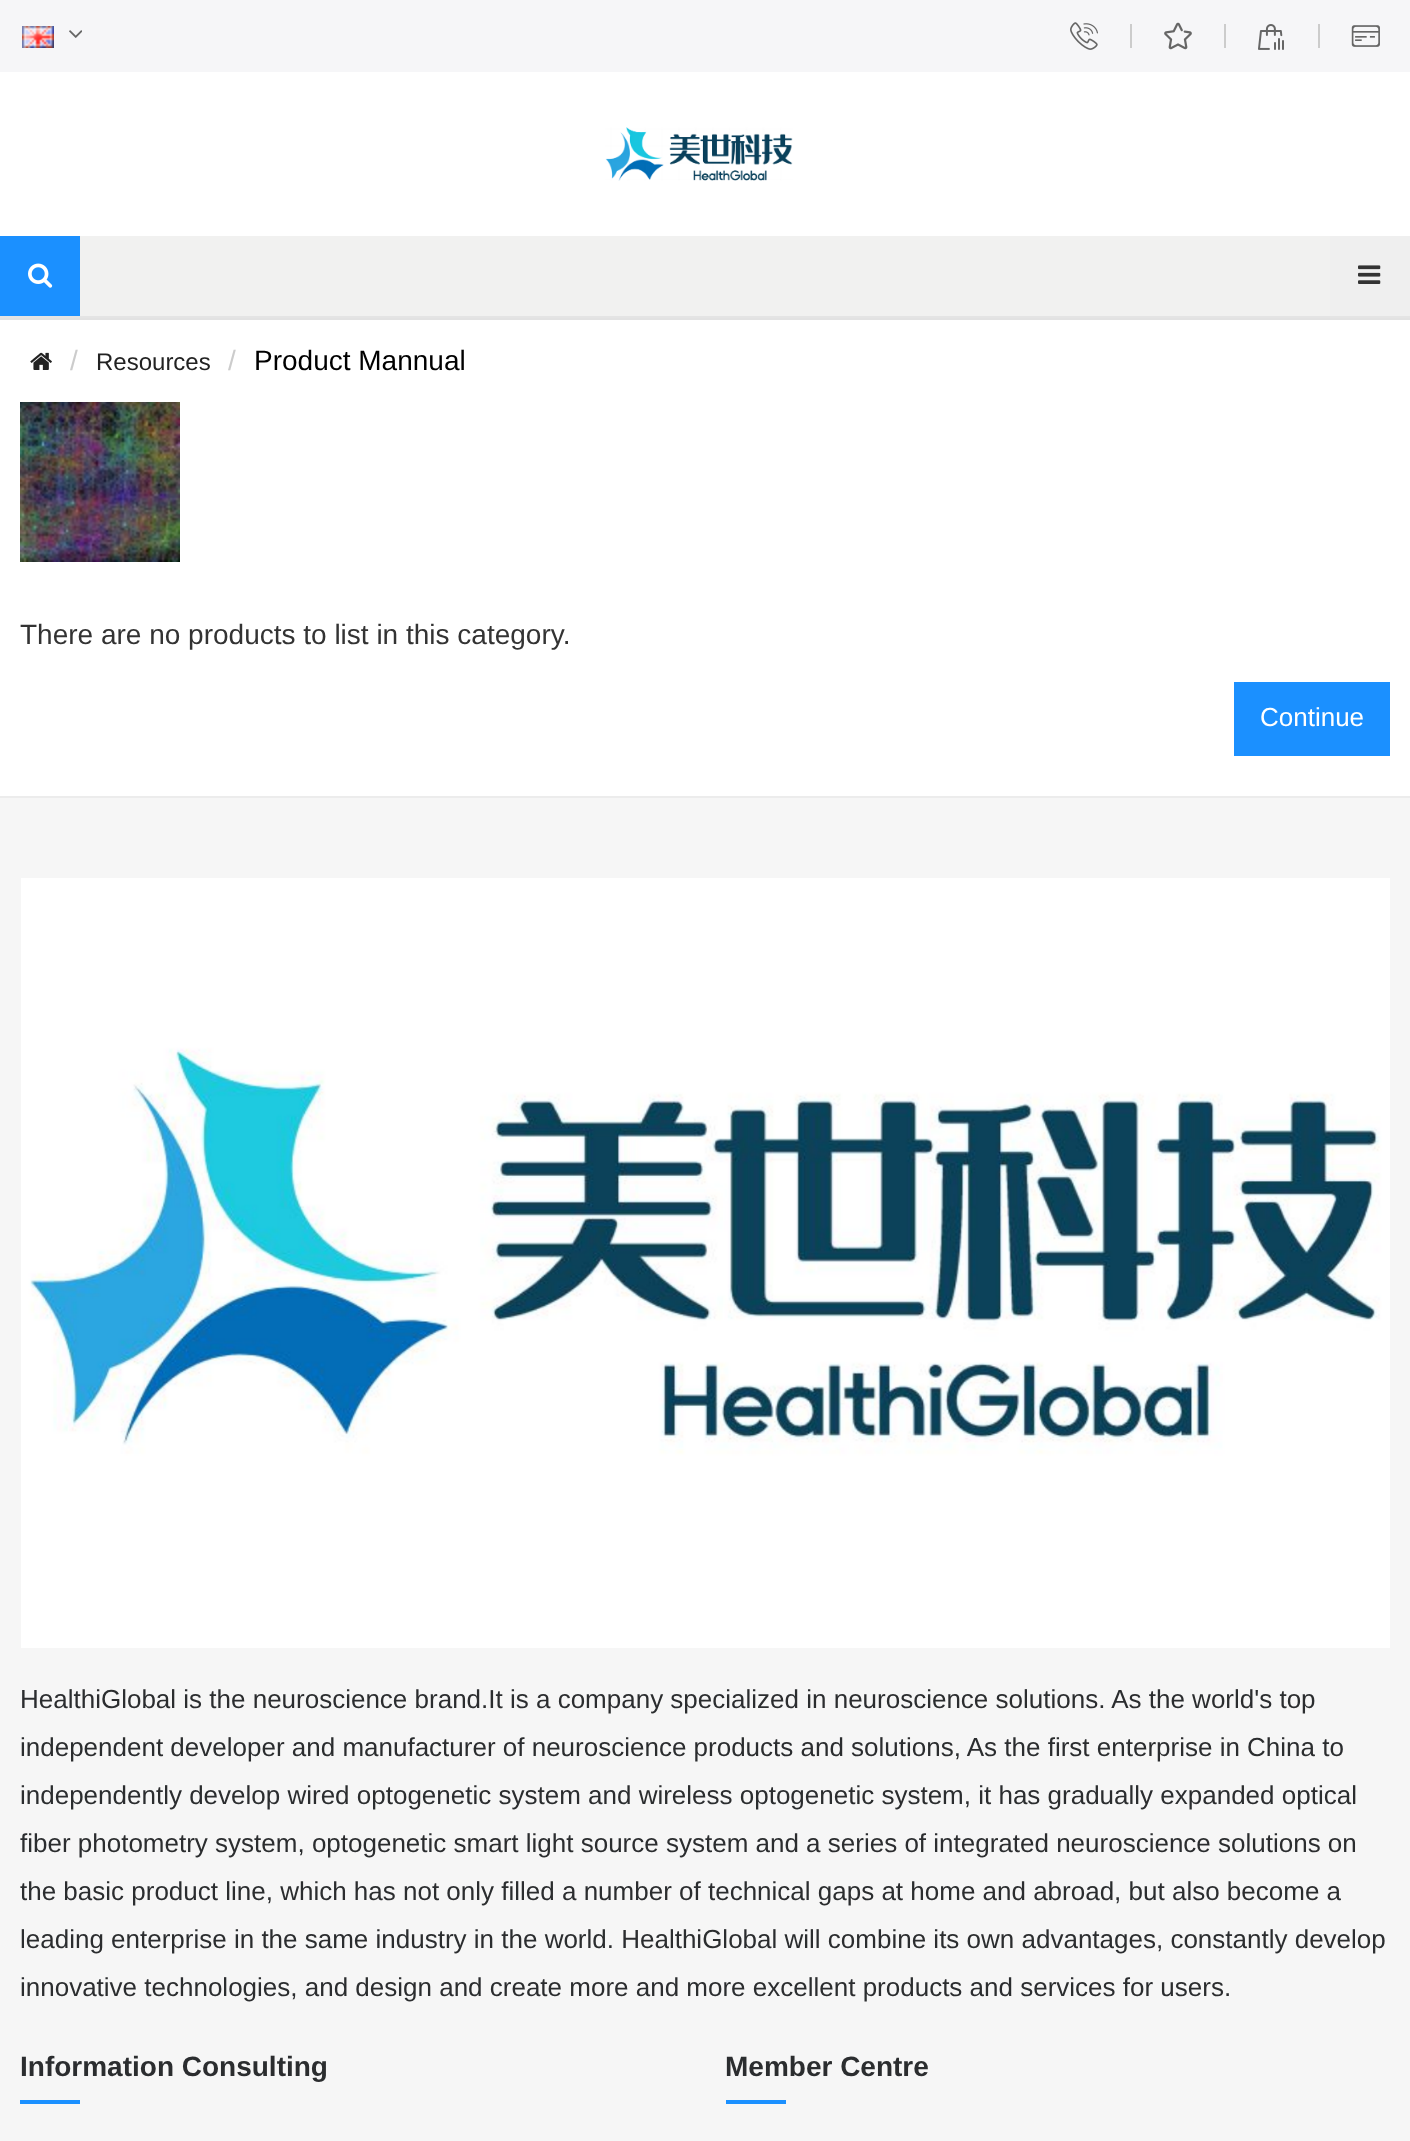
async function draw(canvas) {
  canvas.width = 1410
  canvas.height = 2141
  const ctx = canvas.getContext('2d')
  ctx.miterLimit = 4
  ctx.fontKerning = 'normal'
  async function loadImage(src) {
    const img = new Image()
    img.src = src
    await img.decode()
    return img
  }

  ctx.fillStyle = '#fff'
  ctx.fillRect(0, 0, 1410, 2141)
  ctx.fillStyle = '#e2e2e2'
  ctx.fillRect(0, 318, 1410, 2)
  ctx.fillStyle = '#f6f6f8'
  ctx.fillRect(0, 0, 1410, 72)
  ctx.drawImage(await loadImage('image0.png'), 22, 26, 32, 22)
  ctx.drawImage(await loadImage('image1.png'), 69, 30, 13, 8)
  ctx.drawImage(await loadImage('image2.png'), 1070, 22, 28, 28)
  ctx.fillStyle = '#ccc'
  ctx.fillRect(1130, 24, 2, 24)
  ctx.drawImage(await loadImage('image3.png'), 1164, 22, 28, 28)
  ctx.fillRect(1224, 24, 2, 24)
  ctx.drawImage(await loadImage('image4.png'), 1258, 24, 26, 26)
  ctx.fillRect(1318, 24, 2, 24)
  ctx.drawImage(await loadImage('image5.png'), 1351, 25, 29, 22)
  ctx.drawImage(await loadImage('image6.png'), 605, 127, 188, 54)
  ctx.fillStyle = '#f1f1f0'
  ctx.fillRect(80, 236, 1250, 80)
  ctx.fillStyle = '#e4e4e4'
  ctx.fillRect(0, 316, 1410, 2)
  ctx.fillStyle = '#1b90ff'
  ctx.fillRect(0, 236, 80, 80)
  ctx.drawImage(await loadImage('image7.png'), 28, 263, 25, 25)
  ctx.fillStyle = '#efefef'
  ctx.fillRect(1330, 236, 80, 80)
  ctx.drawImage(await loadImage('image8.png'), 1358, 265, 23, 19)
  ctx.drawImage(await loadImage('image9.png'), 30, 352, 22, 18)
  ctx.font = '28px Liberation Sans'
  ctx.fillStyle = '#ccc'
  ctx.fillText('/', 70, 370)
  ctx.font = '24px Liberation Sans'
  ctx.fillStyle = '#222'
  ctx.fillText('Resources', 96, 370)
  ctx.font = '28px Liberation Sans'
  ctx.fillStyle = '#ccc'
  ctx.fillText('/', 228, 370)
  ctx.fillStyle = '#000'
  ctx.fillText('Product Mannual', 254, 370)
  ctx.drawImage(await loadImage('image10.png'), 20, 402, 160, 160)
  ctx.fillStyle = '#333'
  ctx.fillText('There are no products to list in this category.', 20, 644)
  ctx.fillStyle = '#1b90ff'
  ctx.fillRect(1234, 682, 156, 74)
  ctx.font = '26px Liberation Sans'
  ctx.fillStyle = '#fff'
  ctx.fillText('Continue', 1260, 726)
  ctx.fillStyle = '#f6f6f6'
  ctx.fillRect(0, 798, 1410, 1343)
  ctx.fillStyle = '#ececec'
  ctx.fillRect(0, 796, 1410, 2)
  ctx.drawImage(await loadImage('image11.png'), 21, 878, 1369, 770)
  ctx.fillStyle = '#2b2d2f'
  ctx.fillText('HealthiGlobal is the neuroscience brand.It is a company specialized in neuroscience solutions. As the world\'s top', 20, 1708)
  ctx.fillText('independent developer and manufacturer of neuroscience products and solutions, As the first enterprise in China to', 20, 1756)
  ctx.fillText('independently develop wired optogenetic system and wireless optogenetic system, it has gradually expanded optical', 20, 1804)
  ctx.fillText('fiber photometry system, optogenetic smart light source system and a series of integrated neuroscience solutions on', 20, 1852)
  ctx.fillText('the basic product line, which has not only filled a number of technical gaps at home and abroad, but also become a', 20, 1900)
  ctx.fillText('leading enterprise in the same industry in the world. HealthiGlobal will combine its own advantages, constantly develop', 20, 1948)
  ctx.fillText('innovative technologies, and design and create more and more excellent products and services for users.', 20, 1996)
  ctx.font = 'bold 28px Liberation Sans'
  ctx.fillText('Information Consulting', 20, 2076)
  ctx.fillStyle = '#1b90ff'
  ctx.fillRect(20, 2100, 60, 4)
  ctx.fillStyle = '#2b2d2f'
  ctx.fillText('Member Centre', 725, 2076)
  ctx.fillStyle = '#1b90ff'
  ctx.fillRect(726, 2100, 60, 4)
}

draw(document.querySelector('canvas'))
